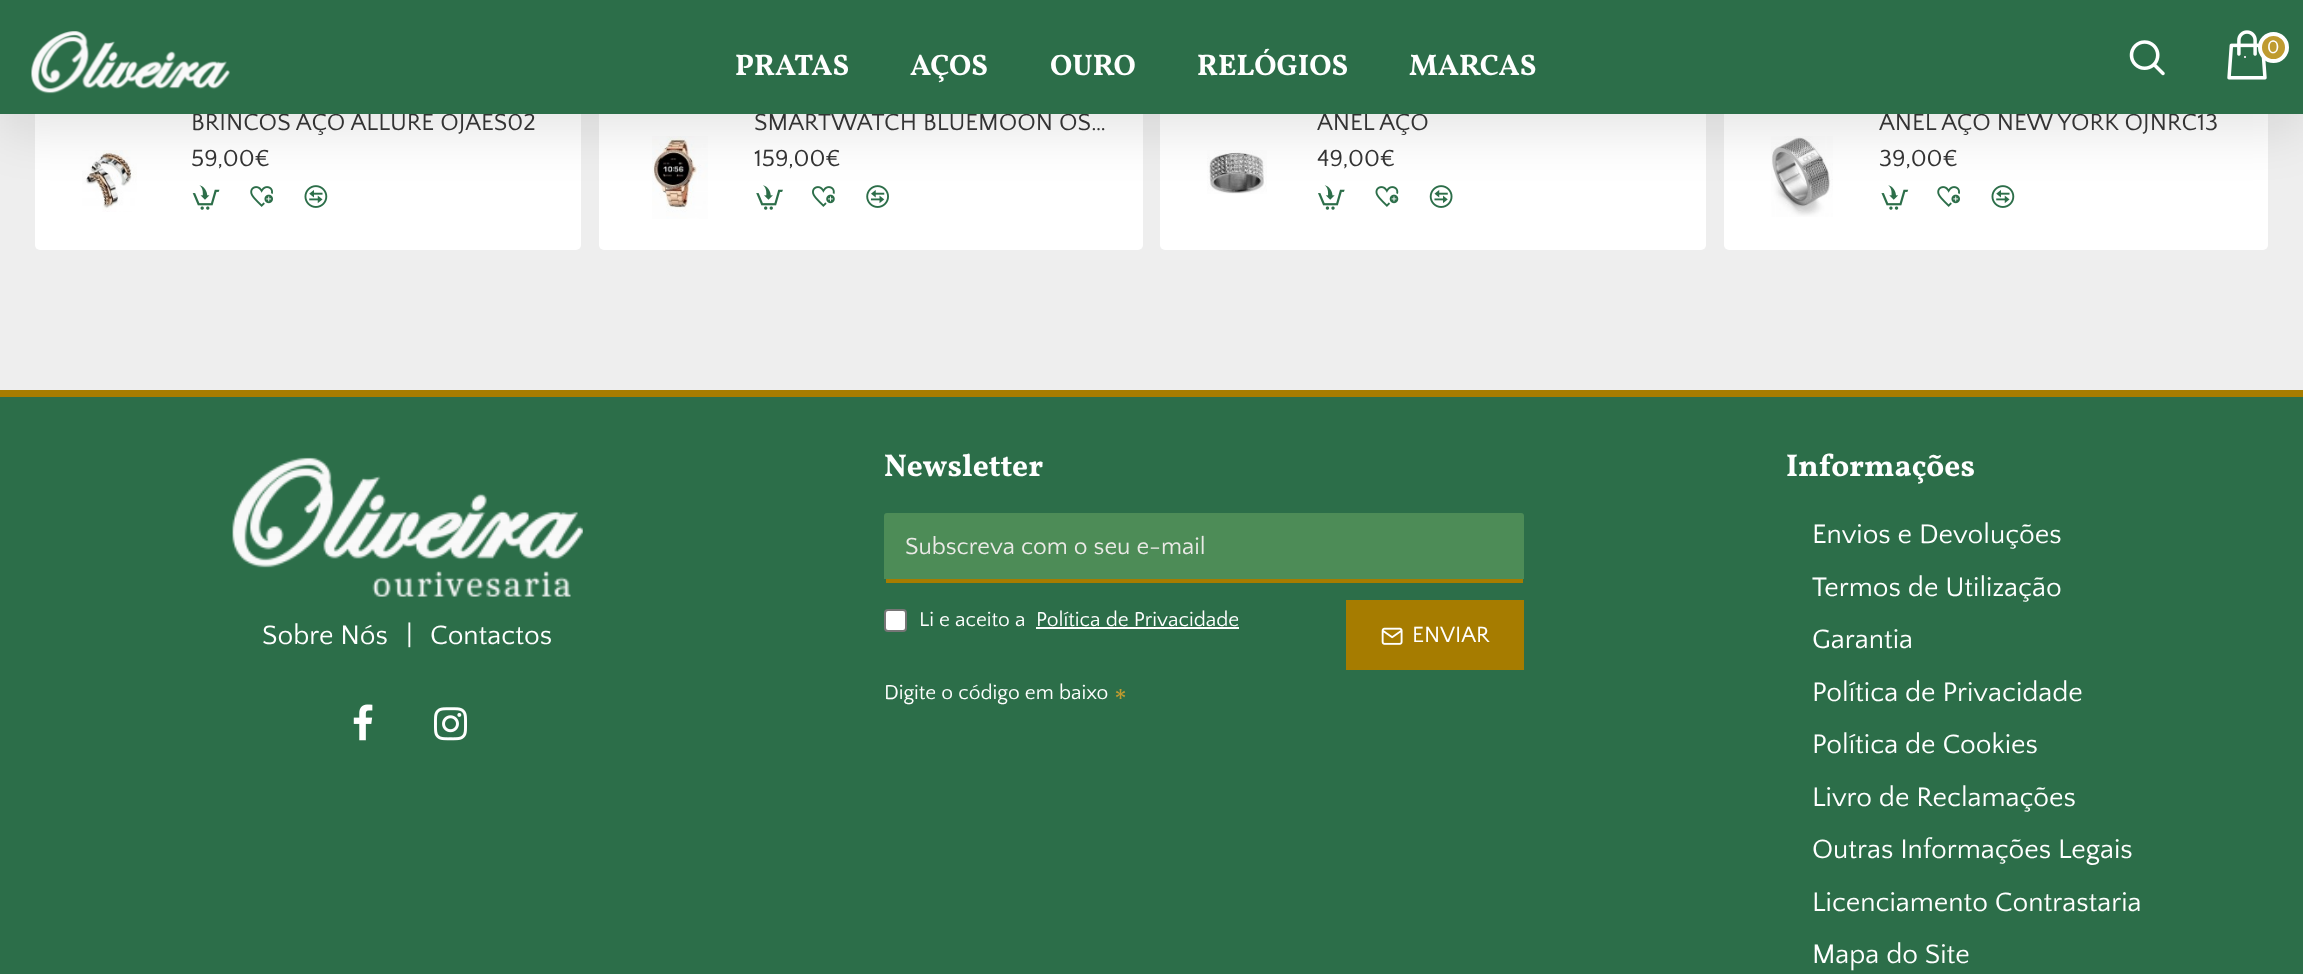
async function draw(canvas) {
  canvas.width = 2303
  canvas.height = 974
  const ctx = canvas.getContext('2d')
  ctx.miterLimit = 4
  ctx.fontKerning = 'normal'
  async function loadImage(src) {
    const img = new Image()
    img.src = src
    await img.decode()
    return img
  }

  ctx.fillStyle = '#2c6e49'
  ctx.fillRect(0, 0, 2303, 974)
  ctx.fillStyle = '#eee'
  ctx.fillRect(0, 114, 2303, 276)
  ctx.fillStyle = '#fff'
  ctx.beginPath()
  ctx.roundRect(35, 96, 546, 154, 5)
  ctx.fill()
  ctx.drawImage(await loadImage('image3.png'), 192, 185, 28, 25)
  ctx.drawImage(await loadImage('image4.png'), 250, 186, 23, 21)
  ctx.drawImage(await loadImage('image5.png'), 304, 185, 24, 23)
  ctx.drawImage(await loadImage('image6.png'), 82, 150, 55, 62)
  ctx.beginPath()
  ctx.roundRect(599, 96, 544, 154, 5)
  ctx.fill()
  ctx.drawImage(await loadImage('image7.png'), 652, 136, 56, 83)
  ctx.drawImage(await loadImage('image8.png'), 756, 185, 27, 25)
  ctx.drawImage(await loadImage('image9.png'), 812, 186, 23, 21)
  ctx.drawImage(await loadImage('image10.png'), 866, 185, 23, 23)
  ctx.beginPath()
  ctx.roundRect(1160, 96, 546, 154, 5)
  ctx.fill()
  ctx.drawImage(await loadImage('image11.png'), 1207, 150, 60, 44)
  ctx.drawImage(await loadImage('image12.png'), 1318, 185, 27, 25)
  ctx.drawImage(await loadImage('image13.png'), 1375, 186, 24, 21)
  ctx.drawImage(await loadImage('image14.png'), 1429, 185, 24, 23)
  ctx.beginPath()
  ctx.roundRect(1724, 96, 544, 154, 5)
  ctx.fill()
  ctx.drawImage(await loadImage('image15.png'), 1771, 136, 62, 81)
  ctx.drawImage(await loadImage('image16.png'), 1881, 185, 28, 25)
  ctx.drawImage(await loadImage('image4.png'), 1937, 186, 23, 21)
  ctx.drawImage(await loadImage('image5.png'), 1991, 185, 24, 23)
  ctx.fillStyle = '#0000001a'
  ctx.filter = 'blur(26px)'
  ctx.beginPath()
  ctx.rect(0, -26, 2303, 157)
  ctx.fill()
  ctx.filter = 'none'
  ctx.font = '24.5px Quattrocento Sans'
  ctx.fillStyle = '#333'
  ctx.fillText('BRINCOS AÇO ALLURE OJAES02', 191, 130)
  ctx.fillText('SMARTWATCH BLUEMOON OS…', 754, 130)
  ctx.fillText('ANEL AÇO', 1317, 130)
  ctx.fillText('ANEL AÇO NEW YORK OJNRC13', 1879, 130)
  ctx.fillStyle = '#2c6e49'
  ctx.fillRect(0, 0, 2303, 114)
  ctx.drawImage(await loadImage('image0.png'), 31, 31, 199, 63)
  ctx.font = 'bold 29.75px Vollkorn'
  ctx.fillStyle = '#fff'
  ctx.fillText('PRATAS', 735, 75)
  ctx.fillText('AÇOS', 910, 75)
  ctx.fillText('OURO', 1050, 75)
  ctx.fillText('RELÓGIOS', 1197, 75)
  ctx.fillText('MARCAS', 1409, 75)
  ctx.drawImage(await loadImage('image1.png'), 2129, 40, 36, 36)
  ctx.fillStyle = '#ddd'
  ctx.fillRect(2244, 56, 2, 2)
  ctx.drawImage(await loadImage('image2.png'), 2227, 30, 40, 50)
  ctx.fillStyle = '#bf9b30'
  ctx.beginPath()
  ctx.arc(2273.5, 47.5, 13.5, 0, 2 * Math.PI)
  ctx.fill()
  ctx.strokeStyle = '#fff'
  ctx.lineWidth = 4
  ctx.stroke()
  ctx.font = '19px Quattrocento Sans'
  ctx.fillStyle = '#fff'
  ctx.fillText('0', 2267, 53)
  ctx.font = '24.5px Quattrocento Sans'
  ctx.fillStyle = '#333'
  ctx.fillText('59,00€', 191, 166)
  ctx.fillText('159,00€', 754, 166)
  ctx.fillText('49,00€', 1317, 166)
  ctx.fillText('39,00€', 1879, 166)
  ctx.fillStyle = '#a67c00'
  ctx.fillRect(0, 390, 2303, 7)
  ctx.drawImage(await loadImage('image17.png'), 232, 457, 351, 140)
  ctx.font = '28px Quattrocento Sans'
  ctx.fillStyle = '#fff'
  ctx.fillText('Sobre Nós', 262, 644)
  ctx.fillText('|', 406, 644)
  ctx.fillText('Contactos', 430, 644)
  ctx.drawImage(await loadImage('image18.png'), 353, 704, 20, 37)
  ctx.drawImage(await loadImage('image19.png'), 434, 707, 33, 34)
  ctx.font = 'bold 31.5px Vollkorn'
  ctx.fillText('Newsletter', 884, 476)
  ctx.fillStyle = '#4d8c57'
  ctx.beginPath()
  ctx.moveTo(887, 513)
  ctx.lineTo(1521, 513)
  ctx.bezierCurveTo(1523, 513, 1524, 514, 1524, 516)
  ctx.lineTo(1524, 579)
  ctx.lineTo(884, 579)
  ctx.lineTo(884, 516)
  ctx.bezierCurveTo(884, 514, 885, 513, 887, 513)
  ctx.closePath()
  ctx.fill()
  ctx.fillStyle = '#a67c00'
  ctx.fillRect(886, 579, 637, 4)
  ctx.font = '24.5px Quattrocento Sans'
  ctx.fillStyle = '#ebeae6'
  ctx.fillText('Subscreva com o seu e-mail', 905, 554)
  ctx.fillStyle = '#a67c00'
  ctx.fillRect(1346, 600, 178, 70)
  ctx.drawImage(await loadImage('image20.png'), 1381, 627, 22, 18)
  ctx.font = '23px Quattrocento Sans'
  ctx.fillStyle = '#fff'
  ctx.fillText('ENVIAR', 1412, 642)
  ctx.beginPath()
  ctx.roundRect(885, 610, 21, 21, 3)
  ctx.fill()
  ctx.strokeStyle = '#767676'
  ctx.lineWidth = 2
  ctx.stroke()
  ctx.font = '21px Quattrocento Sans'
  ctx.fillText('Li e aceito a', 919, 626)
  ctx.fillText('Política de Privacidade', 1036, 626)
  ctx.fillRect(1036, 627, 203, 2)
  ctx.fillText('Digite o código em baixo', 884, 699)
  ctx.font = '29.75px Quattrocento Sans'
  ctx.fillStyle = '#bf9b30'
  ctx.fillText('*', 1114, 710)
  ctx.font = 'bold 31.5px Vollkorn'
  ctx.fillStyle = '#fff'
  ctx.fillText('Informações', 1786, 476)
  ctx.font = '28px Quattrocento Sans'
  ctx.fillText('Envios e Devoluções', 1812, 543)
  ctx.fillText('Termos de Utilização', 1812, 596)
  ctx.fillText('Garantia', 1812, 648)
  ctx.fillText('Política de Privacidade', 1812, 701)
  ctx.fillText('Política de Cookies', 1812, 753)
  ctx.fillText('Livro de Reclamações', 1812, 806)
  ctx.fillText('Outras Informações Legais', 1812, 858)
  ctx.fillText('Licenciamento Contrastaria', 1812, 911)
  ctx.fillText('Mapa do Site', 1812, 963)
}

draw(document.querySelector('canvas'))
